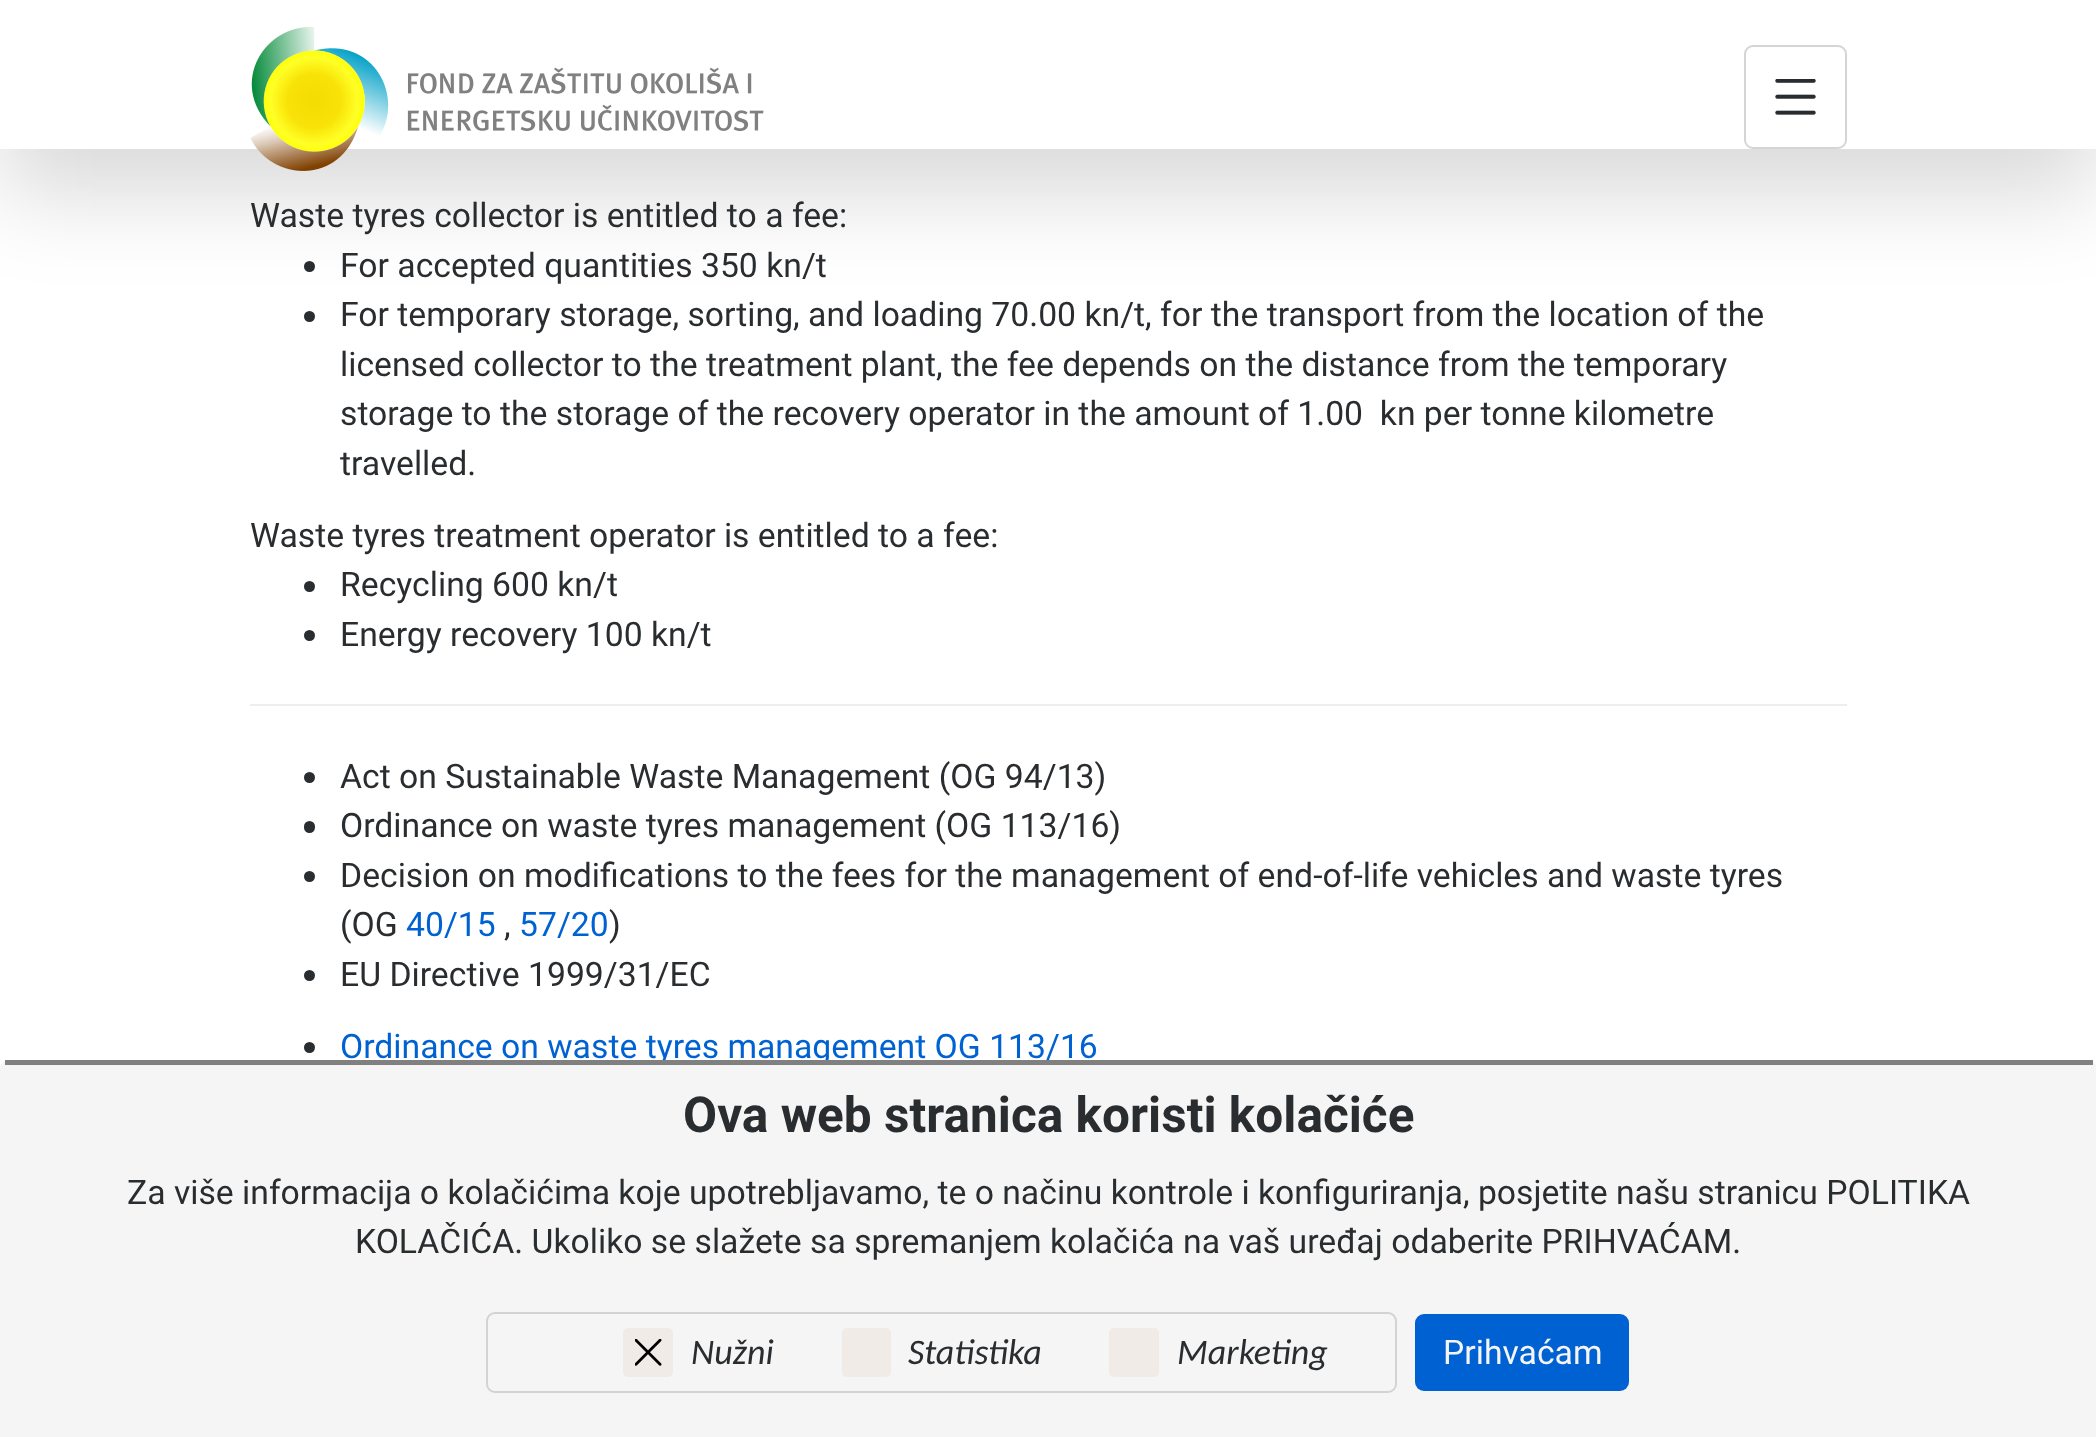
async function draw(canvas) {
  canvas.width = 2096
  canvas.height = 1437
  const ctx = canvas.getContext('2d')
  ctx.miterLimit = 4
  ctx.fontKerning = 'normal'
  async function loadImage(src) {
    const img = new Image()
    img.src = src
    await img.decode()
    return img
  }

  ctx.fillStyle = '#fff'
  ctx.fillRect(0, 0, 2096, 1437)
  ctx.fillStyle = '#2a2d30'
  ctx.beginPath()
  ctx.arc(309.5, 266.5, 5.5, 0, 2 * Math.PI)
  ctx.fill()
  ctx.beginPath()
  ctx.arc(309.5, 316.5, 5.5, 0, 2 * Math.PI)
  ctx.fill()
  ctx.fillStyle = '#00000026'
  ctx.filter = 'blur(45px)'
  ctx.beginPath()
  ctx.rect(0, 45, 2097, 149)
  ctx.fill()
  ctx.filter = 'none'
  ctx.fillStyle = '#fff'
  ctx.fillRect(0, 0, 2096, 149)
  ctx.drawImage(await loadImage('image0.png'), 250, 27, 514, 144)
  ctx.drawImage(await loadImage('image1.png'), 1775, 79, 41, 36)
  ctx.beginPath()
  ctx.roundRect(1745, 46, 101, 102, 8)
  ctx.strokeStyle = '#d5d5d5'
  ctx.lineWidth = 2
  ctx.stroke()
  ctx.font = '33.75px Roboto'
  ctx.fillStyle = '#2a2d30'
  ctx.fillText('Waste tyres collector is entitled to a fee:', 250, 227)
  ctx.fillText('For accepted quantities 350 kn/t', 340, 277)
  ctx.fillText('For temporary storage, sorting, and loading 70.00 kn/t, for the transport from the location of the', 340, 326)
  ctx.fillText('licensed collector to the treatment plant, the fee depends on the distance from the temporary', 340, 376)
  ctx.fillText('storage to the storage of the recovery operator in the amount of 1.00  kn per tonne kilometre', 340, 425)
  ctx.fillText('travelled.', 340, 475)
  ctx.fillText('Waste tyres treatment operator is entitled to a fee:', 250, 547)
  ctx.beginPath()
  ctx.arc(309.5, 586.5, 5.5, 0, 2 * Math.PI)
  ctx.fill()
  ctx.fillText('Recycling 600 kn/t', 340, 596)
  ctx.beginPath()
  ctx.arc(309.5, 635.5, 5.5, 0, 2 * Math.PI)
  ctx.fill()
  ctx.fillText('Energy recovery 100 kn/t', 340, 646)
  ctx.fillStyle = '#eee'
  ctx.fillRect(250, 704, 1597, 2)
  ctx.fillStyle = '#2a2d30'
  ctx.beginPath()
  ctx.arc(309.5, 777.5, 5.5, 0, 2 * Math.PI)
  ctx.fill()
  ctx.fillText('Act on Sustainable Waste Management (OG 94/13)', 340, 788)
  ctx.beginPath()
  ctx.roundRect(304, 821, 11, 12, 5.5)
  ctx.fill()
  ctx.fillText('Ordinance on waste tyres management (OG 113/16)', 340, 837)
  ctx.beginPath()
  ctx.arc(309.5, 876.5, 5.5, 0, 2 * Math.PI)
  ctx.fill()
  ctx.fillText('Decision on modifications to the fees for the management of end-of-life vehicles and waste tyres', 340, 887)
  ctx.fillText('(OG', 340, 936)
  ctx.fillStyle = '#0062d2'
  ctx.fillText('40/15', 406, 936)
  ctx.fillStyle = '#2a2d30'
  ctx.fillText(',', 504, 936)
  ctx.fillStyle = '#0062d2'
  ctx.fillText('57/20', 519, 936)
  ctx.fillStyle = '#2a2d30'
  ctx.fillText(')', 609, 936)
  ctx.beginPath()
  ctx.arc(309.5, 975.5, 5.5, 0, 2 * Math.PI)
  ctx.fill()
  ctx.fillText('EU Directive 1999/31/EC', 340, 986)
  ctx.beginPath()
  ctx.arc(309.5, 1047.5, 5.5, 0, 2 * Math.PI)
  ctx.fill()
  ctx.fillStyle = '#0062d2'
  ctx.fillText('Ordinance on waste tyres management OG 113/16', 340, 1058)
  ctx.fillStyle = '#f5f5f5'
  ctx.beginPath()
  ctx.moveTo(9, 1060)
  ctx.lineTo(2088, 1060)
  ctx.bezierCurveTo(2093, 1060, 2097, 1064, 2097, 1069)
  ctx.lineTo(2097, 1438)
  ctx.lineTo(0, 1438)
  ctx.lineTo(0, 1069)
  ctx.bezierCurveTo(0, 1064, 4, 1060, 9, 1060)
  ctx.closePath()
  ctx.fill()
  ctx.fillStyle = '#808080'
  ctx.fillRect(5, 1060, 2088, 5)
  ctx.font = 'bold 49.5px Roboto'
  ctx.fillStyle = '#2a2d30'
  ctx.fillText('Ova web stranica koristi kolačiće', 683, 1132)
  ctx.font = '33.75px Roboto'
  ctx.fillText('Za više informacija o kolačićima koje upotrebljavamo, te o načinu kontrole i konfiguriranja, posjetite našu stranicu POLITIKA', 127, 1204)
  ctx.fillText('KOLAČIĆA. Ukoliko se slažete sa spremanjem kolačića na vaš uređaj odaberite PRIHVAĆAM.', 355, 1253)
  ctx.beginPath()
  ctx.roundRect(487, 1313, 909, 79, 8)
  ctx.strokeStyle = '#d3d3d3'
  ctx.stroke()
  ctx.fillStyle = '#f0ebe6'
  ctx.beginPath()
  ctx.roundRect(623, 1328, 50, 49, 5)
  ctx.fill()
  ctx.drawImage(await loadImage('image2.png'), 635, 1339, 27, 27)
  ctx.font = 'italic 36px Carlito'
  ctx.fillStyle = '#2a2d30'
  ctx.fillText('Nužni', 691, 1364)
  ctx.fillStyle = '#f0ebe6'
  ctx.beginPath()
  ctx.roundRect(842, 1328, 49, 49, 5)
  ctx.fill()
  ctx.fillStyle = '#2a2d30'
  ctx.fillText('Statistika', 908, 1364)
  ctx.fillStyle = '#f0ebe6'
  ctx.beginPath()
  ctx.roundRect(1109, 1328, 50, 49, 5)
  ctx.fill()
  ctx.fillStyle = '#2a2d30'
  ctx.fillText('Marketing', 1177, 1364)
  ctx.fillStyle = '#0062d2'
  ctx.beginPath()
  ctx.roundRect(1415, 1314, 214, 77, 9)
  ctx.fill()
  ctx.font = '33.75px Roboto'
  ctx.fillStyle = '#f5f5f5'
  ctx.fillText('Prihvaćam', 1443, 1364)
}

draw(document.querySelector('canvas'))
